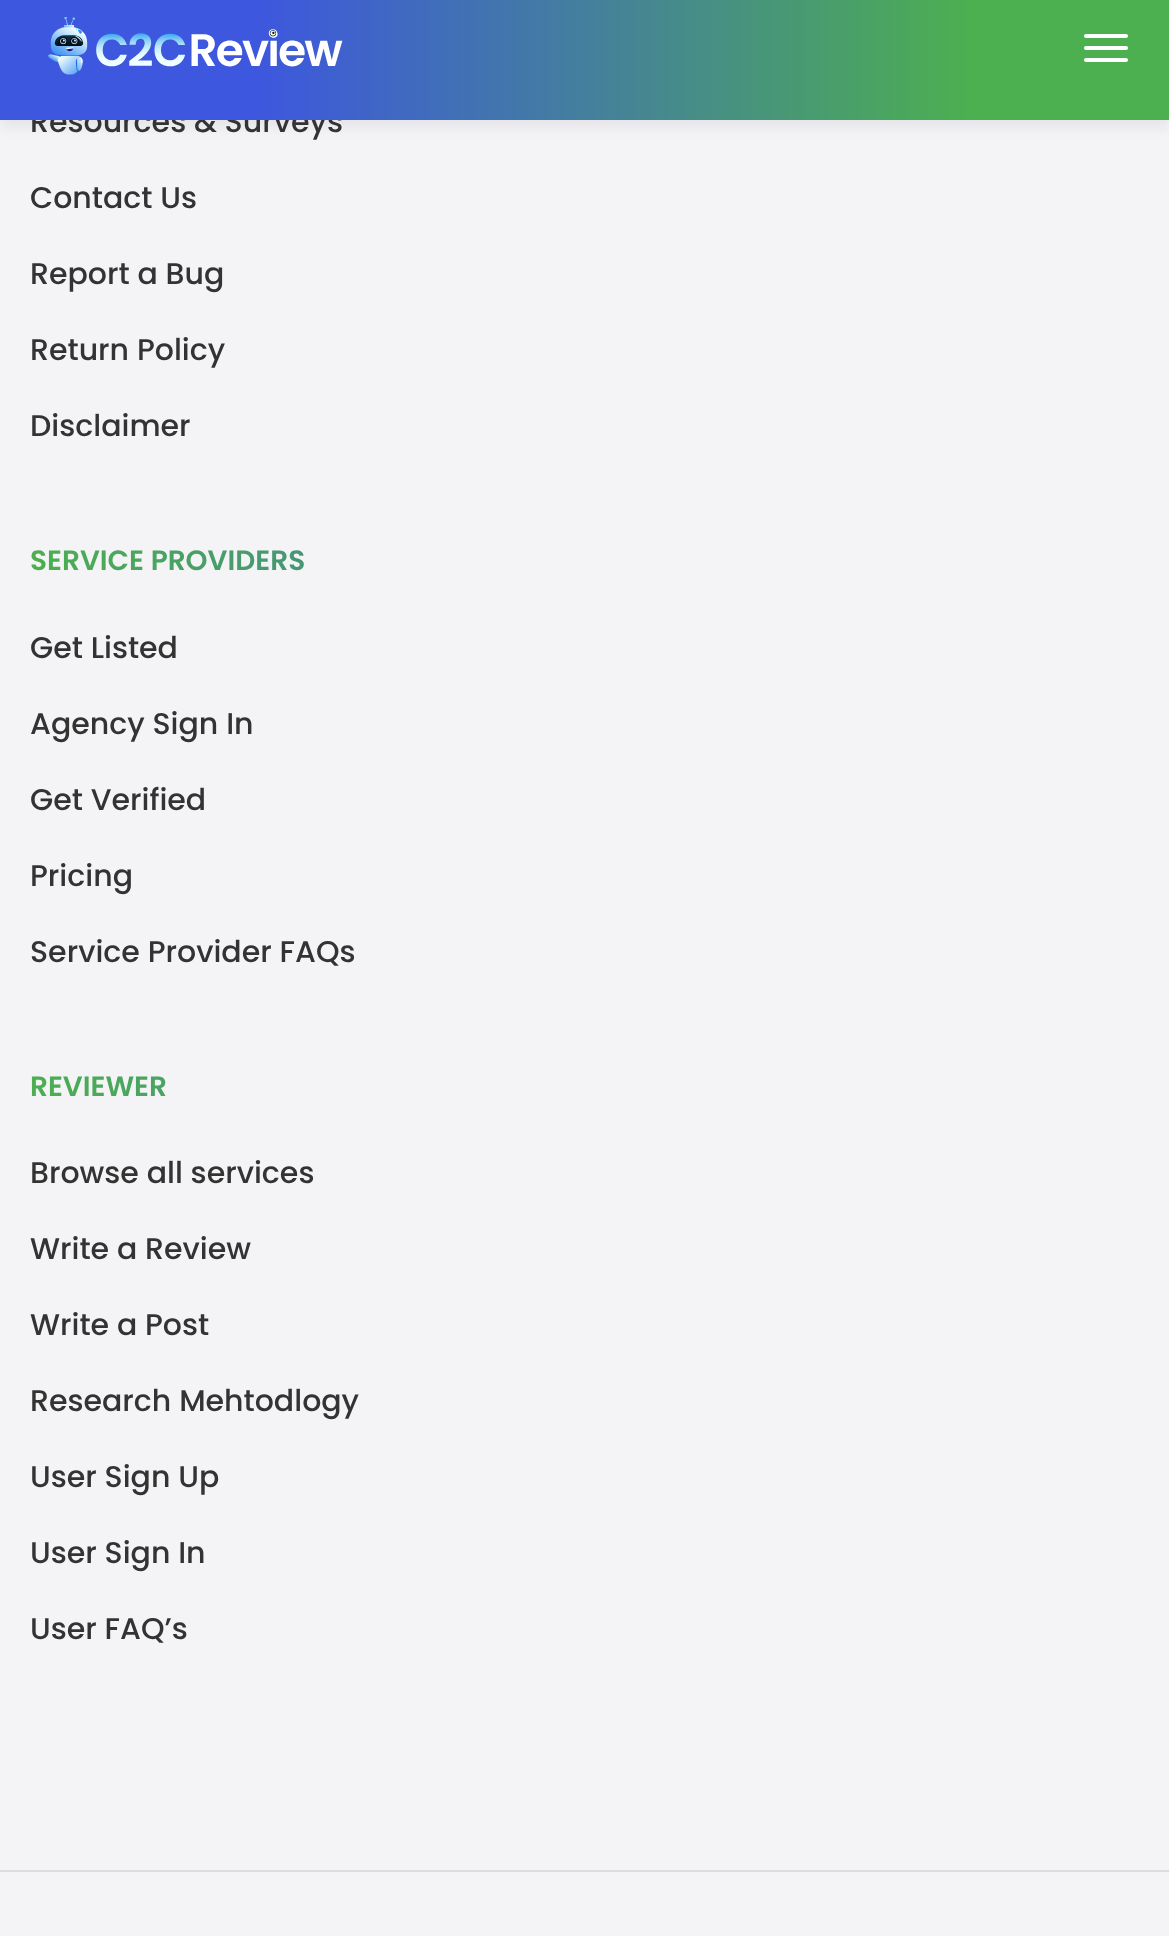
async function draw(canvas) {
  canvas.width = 1169
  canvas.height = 1936
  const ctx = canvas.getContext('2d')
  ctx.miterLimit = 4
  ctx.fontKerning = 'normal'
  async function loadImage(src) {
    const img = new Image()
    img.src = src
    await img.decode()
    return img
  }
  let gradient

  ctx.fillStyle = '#f4f4f6'
  ctx.fillRect(0, 0, 1169, 1936)
  ctx.fillStyle = '#0c002e0f'
  ctx.filter = 'blur(6px)'
  ctx.beginPath()
  ctx.rect(0, 8, 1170, 120)
  ctx.fill()
  ctx.filter = 'none'
  ctx.font = '500 30px Poppins'
  ctx.fillStyle = '#333'
  ctx.fillText('Resources & Surveys', 30, 132)
  gradient = ctx.createLinearGradient(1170, 60, 0, 60)
  gradient.addColorStop(0.17, '#4caf50')
  gradient.addColorStop(0.78, '#3d57de')
  ctx.fillStyle = gradient
  ctx.fillRect(0, 0, 1169, 120)
  ctx.drawImage(await loadImage('image0.png'), 48, 17, 295, 58)
  ctx.fillStyle = '#fff'
  ctx.beginPath()
  ctx.roundRect(1084, 34, 44, 4, 2)
  ctx.fill()
  ctx.beginPath()
  ctx.roundRect(1084, 46, 44, 4, 2)
  ctx.fill()
  ctx.beginPath()
  ctx.roundRect(1084, 58, 44, 4, 2)
  ctx.fill()
  ctx.fillStyle = '#333'
  ctx.fillText('Contact Us', 30, 208)
  ctx.fillText('Report a Bug', 30, 284)
  ctx.fillText('Return Policy', 30, 360)
  ctx.fillText('Disclaimer', 30, 436)
  ctx.font = '600 28px Poppins'
  gradient = ctx.createLinearGradient(30, 561, 1140, 561)
  gradient.addColorStop(0, '#4caf50')
  gradient.addColorStop(0.91, '#3954dd')
  ctx.fillStyle = gradient
  ctx.fillText('SERVICE PROVIDERS', 30, 570)
  ctx.font = '500 30px Poppins'
  ctx.fillStyle = '#333'
  ctx.fillText('Get Listed', 30, 658)
  ctx.fillText('Agency Sign In', 30, 734)
  ctx.fillText('Get Verified', 30, 810)
  ctx.fillText('Pricing', 30, 886)
  ctx.fillText('Service Provider FAQs', 30, 962)
  ctx.font = '600 28px Poppins'
  gradient = ctx.createLinearGradient(30, 1087, 1140, 1087)
  gradient.addColorStop(0, '#4caf50')
  gradient.addColorStop(0.91, '#3954dd')
  ctx.fillStyle = gradient
  ctx.fillText('REVIEWER', 30, 1096)
  ctx.font = '500 30px Poppins'
  ctx.fillStyle = '#333'
  ctx.fillText('Browse all services', 30, 1183)
  ctx.fillText('Write a Review', 30, 1259)
  ctx.fillText('Write a Post', 30, 1335)
  ctx.fillText('Research Mehtodlogy', 30, 1411)
  ctx.fillText('User Sign Up', 30, 1487)
  ctx.fillText('User Sign In', 30, 1563)
  ctx.fillText('User FAQ’s', 30, 1639)
  ctx.fillStyle = '#dcdcdc'
  ctx.fillRect(0, 1870, 1169, 2)
}

draw(document.querySelector('canvas'))
